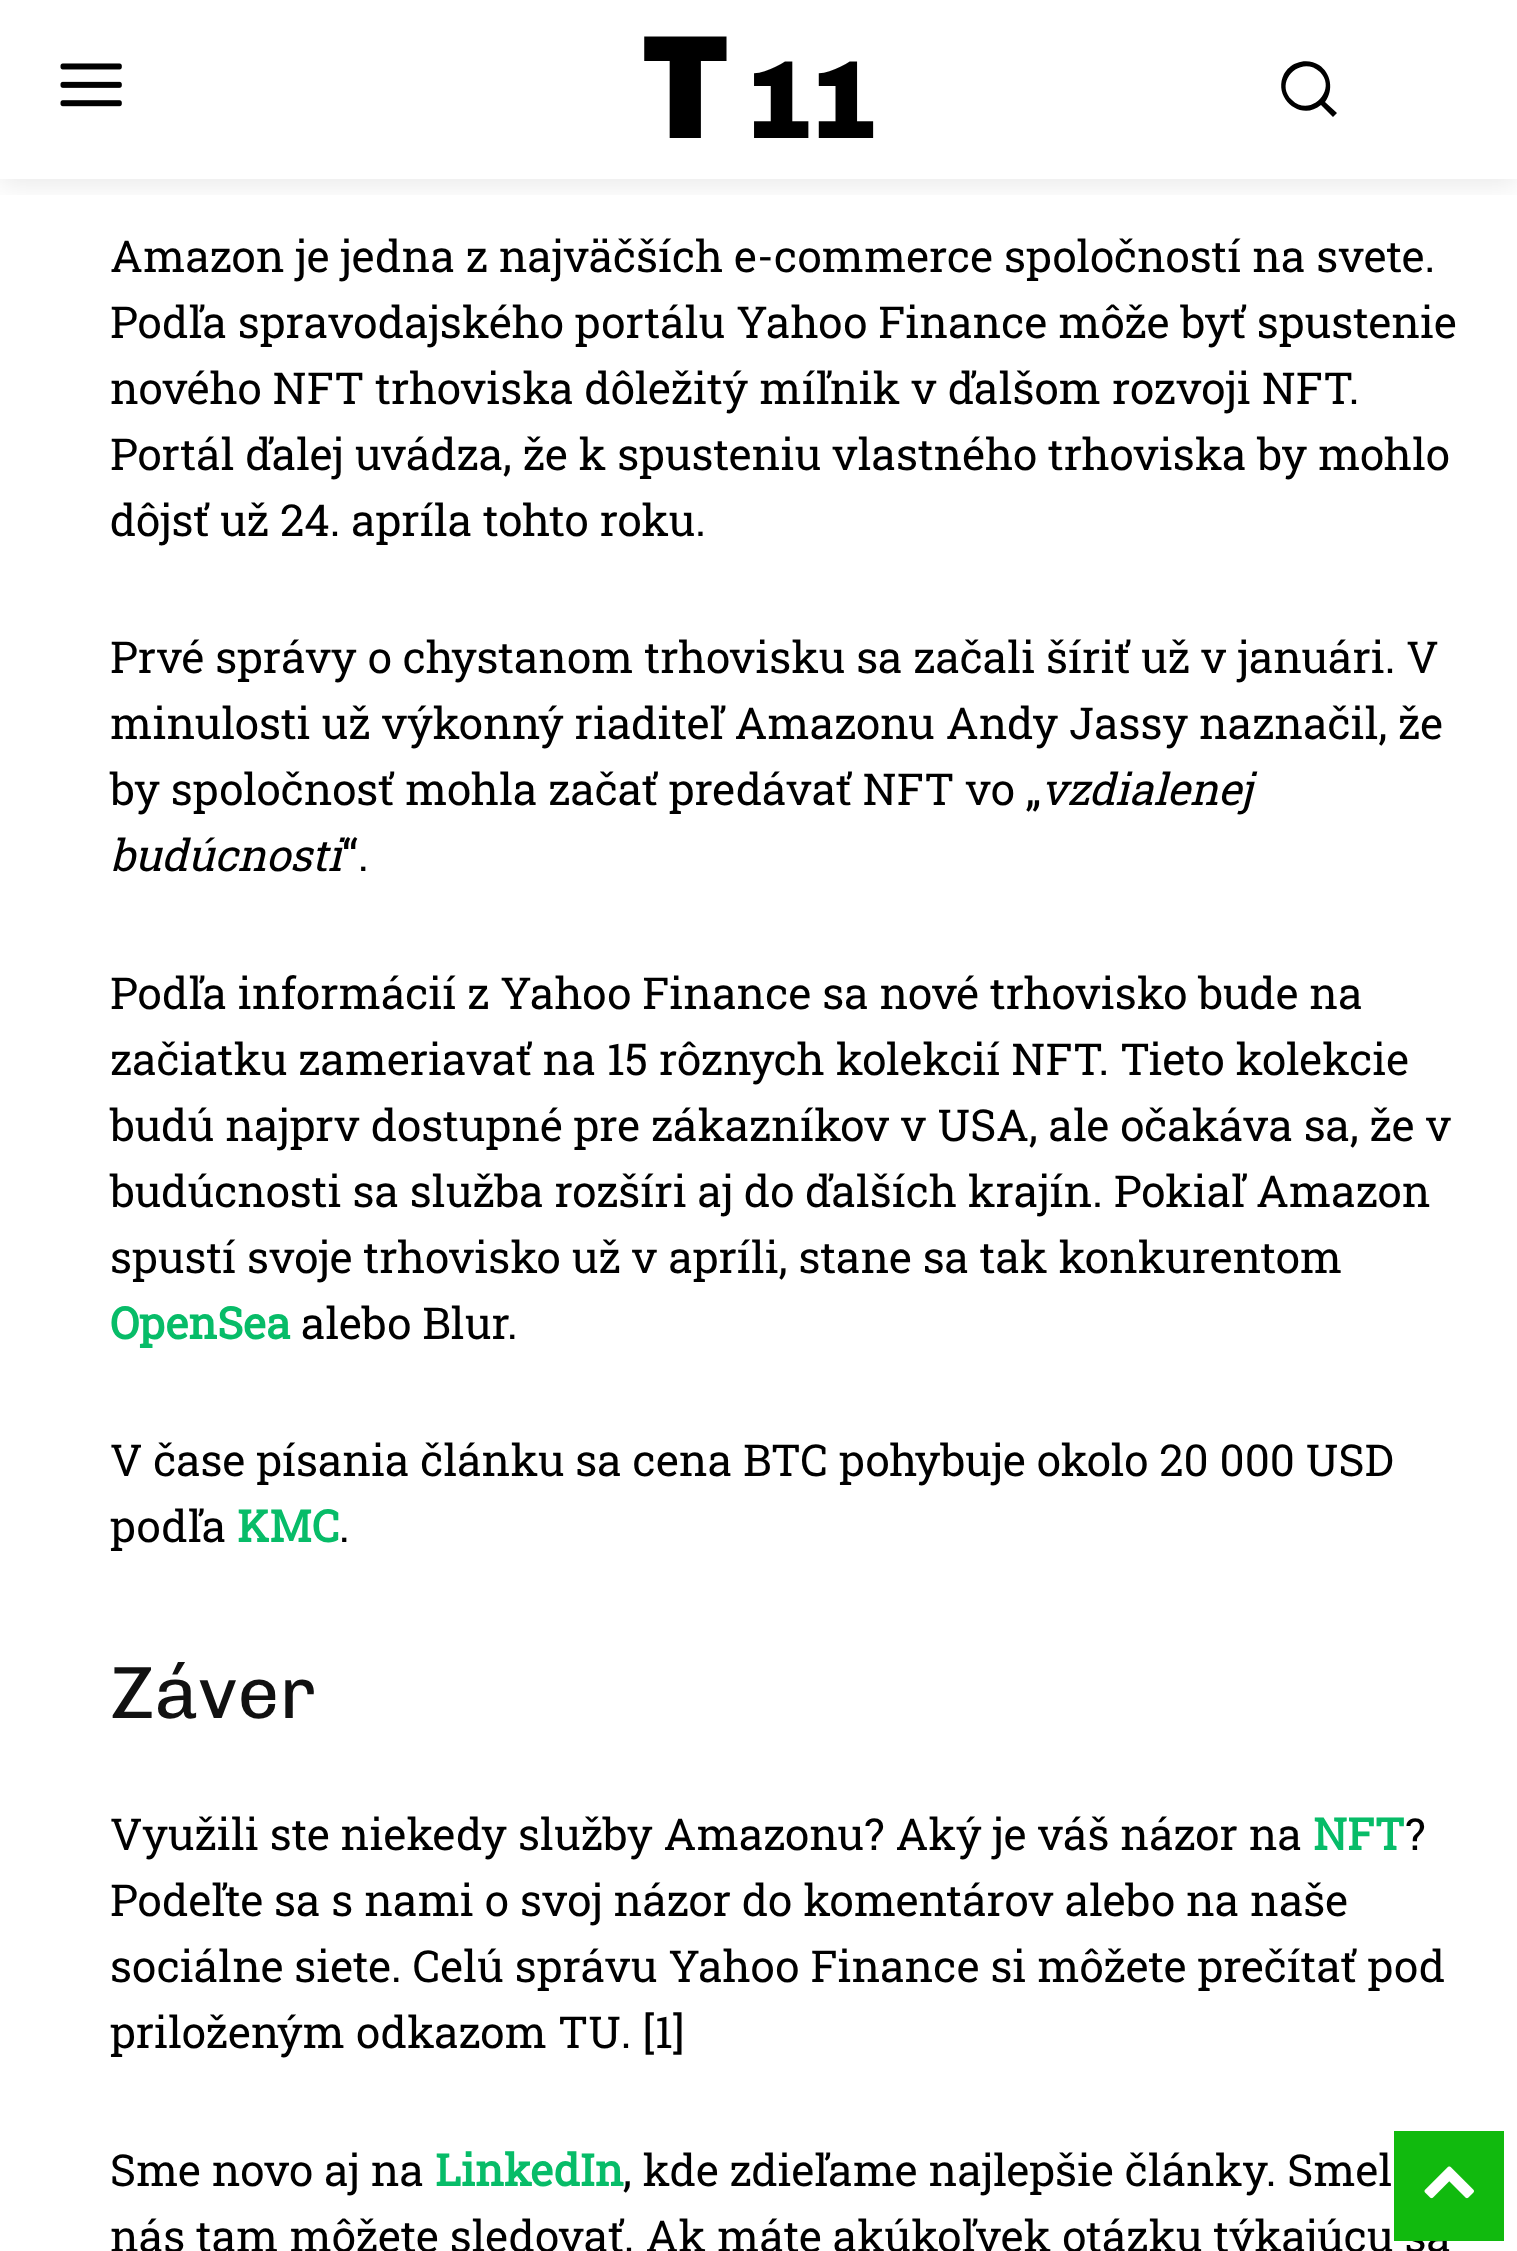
async function draw(canvas) {
  canvas.width = 1517
  canvas.height = 2251
  const ctx = canvas.getContext('2d')
  ctx.miterLimit = 4
  ctx.fontKerning = 'normal'
  async function loadImage(src) {
    const img = new Image()
    img.src = src
    await img.decode()
    return img
  }

  ctx.fillStyle = '#fff'
  ctx.fillRect(0, 0, 1517, 2251)
  ctx.drawImage(await loadImage('image0.png'), 60, 63, 62, 44)
  ctx.fillStyle = '#000'
  ctx.beginPath()
  ctx.moveTo(1337, 113)
  ctx.lineTo(1325, 102)
  ctx.bezierCurveTo(1334, 90, 1331, 73, 1319, 65)
  ctx.bezierCurveTo(1313, 61, 1304, 60, 1297, 63)
  ctx.bezierCurveTo(1291, 65, 1287, 69, 1284, 74)
  ctx.bezierCurveTo(1272, 98, 1301, 122, 1321, 105)
  ctx.lineTo(1333, 117)
  ctx.closePath()
  ctx.moveTo(1292, 100)
  ctx.bezierCurveTo(1273, 82, 1301, 54, 1320, 72)
  ctx.bezierCurveTo(1338, 90, 1310, 118, 1292, 100)
  ctx.closePath()
  ctx.fill()
  ctx.save()
  ctx.beginPath()
  ctx.rect(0, 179, 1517, 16)
  ctx.clip()
  ctx.fillStyle = '#00000017'
  ctx.filter = 'blur(14px)'
  ctx.beginPath()
  ctx.rect(0, 6, 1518, 178)
  ctx.fill()
  ctx.filter = 'none'
  ctx.restore()
  ctx.font = '900 148px Chivo'
  ctx.fillText('T', 642, 138)
  ctx.letterSpacing = '-3px'
  ctx.font = '900 110px Chivo'
  ctx.fillText('11', 746, 138)
  ctx.letterSpacing = '0px'
  ctx.font = '44px Roboto Slab'
  ctx.fillText('Amazon je jedna z najväčších e-commerce spoločností na svete.', 110, 272)
  ctx.fillText('Podľa spravodajského portálu Yahoo Finance môže byť spustenie', 110, 338)
  ctx.fillText('nového NFT trhoviska dôležitý míľnik v ďalšom rozvoji NFT.', 110, 404)
  ctx.fillText('Portál ďalej uvádza, že k spusteniu vlastného trhoviska by mohlo', 110, 470)
  ctx.fillText('dôjsť už 24. apríla tohto roku.', 110, 536)
  ctx.fillText('Prvé správy o chystanom trhovisku sa začali šíriť už v januári. V', 110, 673)
  ctx.fillText('minulosti už výkonný riaditeľ Amazonu Andy Jassy naznačil, že', 110, 739)
  ctx.fillText('by spoločnosť mohla začať predávať NFT vo „', 110, 805)
  ctx.font = 'italic 44px Roboto Slab'
  ctx.fillText('vzdialenej', 1041, 805)
  ctx.fillText('budúcnosti', 110, 871)
  ctx.font = '44px Roboto Slab'
  ctx.fillText('“.', 342, 871)
  ctx.fillText('Podľa informácií z Yahoo Finance sa nové trhovisko bude na', 110, 1009)
  ctx.fillText('začiatku zameriavať na 15 rôznych kolekcií NFT. Tieto kolekcie', 110, 1075)
  ctx.fillText('budú najprv dostupné pre zákazníkov v USA, ale očakáva sa, že v', 110, 1141)
  ctx.fillText('budúcnosti sa služba rozšíri aj do ďalších krajín. Pokiaľ Amazon', 110, 1207)
  ctx.fillText('spustí svoje trhovisko už v apríli, stane sa tak konkurentom', 110, 1273)
  ctx.font = 'bold 44px Roboto Slab'
  ctx.fillStyle = '#07bc68'
  ctx.fillText('OpenSea', 110, 1339)
  ctx.font = '44px Roboto Slab'
  ctx.fillStyle = '#000'
  ctx.fillText('alebo Blur.', 301, 1339)
  ctx.fillText('V čase písania článku sa cena BTC pohybuje okolo 20 000 USD', 110, 1476)
  ctx.fillText('podľa', 110, 1542)
  ctx.font = 'bold 44px Roboto Slab'
  ctx.fillStyle = '#07bc68'
  ctx.fillText('KMC', 237, 1542)
  ctx.font = '44px Roboto Slab'
  ctx.fillStyle = '#000'
  ctx.fillText('.', 339, 1542)
  ctx.font = '74px Chivo'
  ctx.fillStyle = '#111'
  ctx.fillText('Záver', 110, 1718)
  ctx.font = '44px Roboto Slab'
  ctx.fillStyle = '#000'
  ctx.fillText('Využili ste niekedy služby Amazonu? Aký je váš názor na', 110, 1850)
  ctx.font = 'bold 44px Roboto Slab'
  ctx.fillStyle = '#07bc68'
  ctx.fillText('NFT', 1313, 1850)
  ctx.font = '44px Roboto Slab'
  ctx.fillStyle = '#000'
  ctx.fillText('?', 1405, 1850)
  ctx.fillText('Podeľte sa s nami o svoj názor do komentárov alebo na naše', 110, 1916)
  ctx.fillText('sociálne siete. Celú správu Yahoo Finance si môžete prečítať pod', 110, 1982)
  ctx.fillText('priloženým odkazom TU. [1]', 110, 2048)
  ctx.fillText('Sme novo aj na', 110, 2186)
  ctx.font = 'bold 44px Roboto Slab'
  ctx.fillStyle = '#07bc68'
  ctx.fillText('LinkedIn', 435, 2186)
  ctx.font = '44px Roboto Slab'
  ctx.fillStyle = '#000'
  ctx.fillText(', kde zdieľame najlepšie články. Smel', 623, 2186)
  ctx.fillText('nás tam môžete sledovať. Ak máte akúkoľvek otázku týkajúcu sa', 110, 2252)
  ctx.fillStyle = '#11ba0e'
  ctx.fillRect(1394, 2131, 110, 110)
  ctx.drawImage(await loadImage('image1.png'), 1424, 2166, 50, 33)
}

draw(document.querySelector('canvas'))
